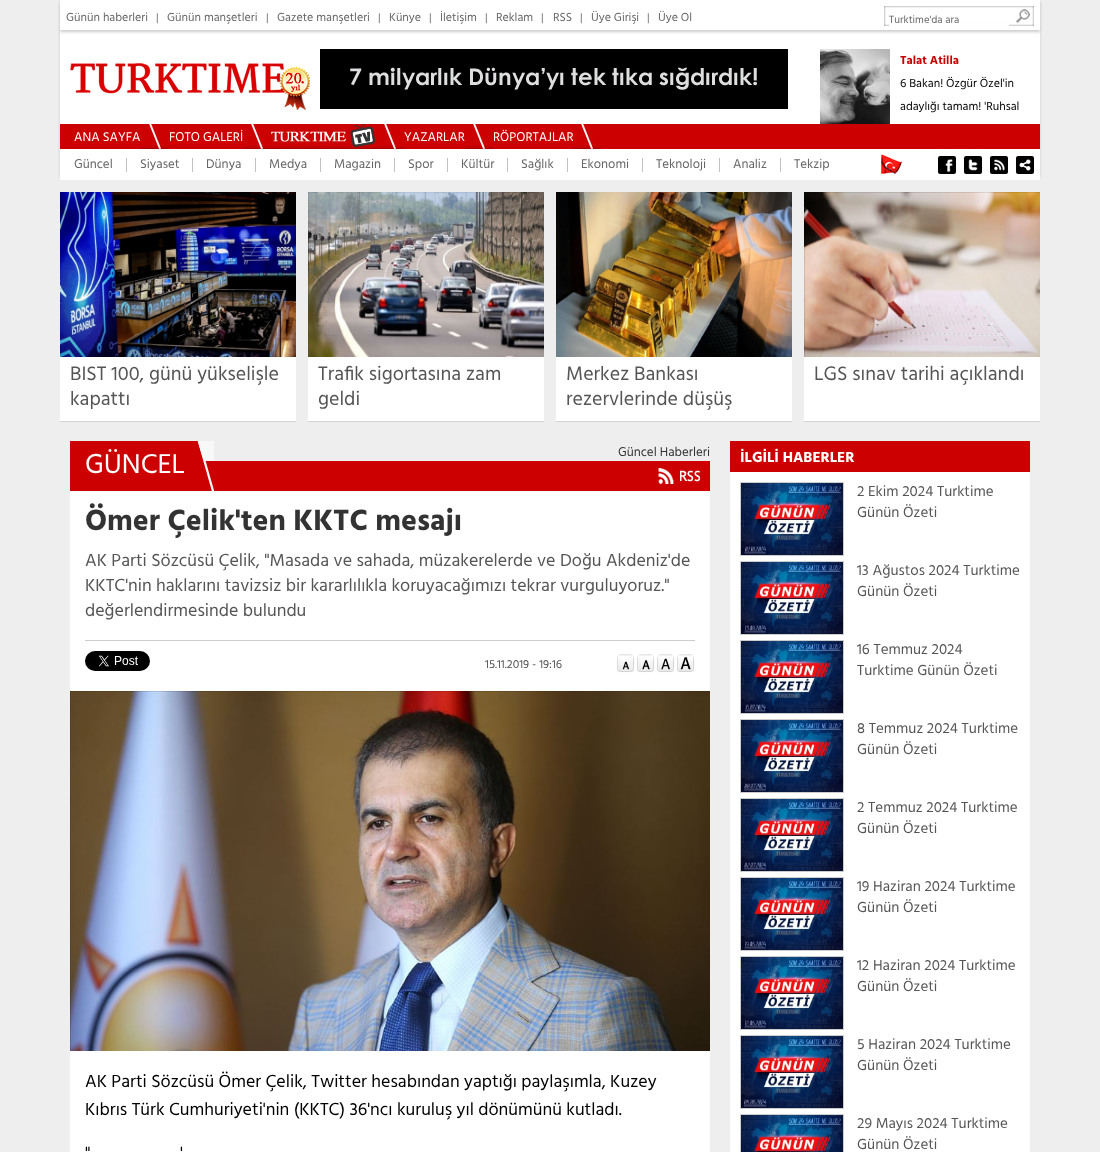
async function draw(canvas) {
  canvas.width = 1100
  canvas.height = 1152
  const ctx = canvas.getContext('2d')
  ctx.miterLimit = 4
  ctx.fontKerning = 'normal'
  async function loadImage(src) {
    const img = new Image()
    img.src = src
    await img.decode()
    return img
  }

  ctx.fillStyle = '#eee'
  ctx.fillRect(0, 0, 1100, 1152)
  ctx.fillStyle = '#ccc'
  ctx.filter = 'blur(1.5px)'
  ctx.beginPath()
  ctx.rect(60, 2, 980, 175)
  ctx.fill()
  ctx.filter = 'none'
  ctx.fillStyle = '#fff'
  ctx.fillRect(60, 0, 980, 180)
  ctx.save()
  ctx.beginPath()
  ctx.moveTo(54, 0)
  ctx.lineTo(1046, 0)
  ctx.lineTo(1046, 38)
  ctx.lineTo(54, 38)
  ctx.closePath()
  ctx.moveTo(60, 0)
  ctx.lineTo(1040, 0)
  ctx.lineTo(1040, 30)
  ctx.lineTo(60, 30)
  ctx.closePath()
  ctx.clip('evenodd')
  ctx.fillStyle = '#ccc'
  ctx.filter = 'blur(1.5px)'
  ctx.beginPath()
  ctx.rect(60, 2, 980, 30)
  ctx.fill()
  ctx.filter = 'none'
  ctx.restore()
  ctx.font = '12px Hind'
  ctx.fillStyle = '#666'
  ctx.fillText('Günün haberleri', 66, 21)
  ctx.font = '11px Hind'
  ctx.fillText('|', 156, 21)
  ctx.font = '12px Hind'
  ctx.fillText('Günün manşetleri', 167, 21)
  ctx.font = '11px Hind'
  ctx.fillText('|', 266, 21)
  ctx.font = '12px Hind'
  ctx.fillText('Gazete manşetleri', 277, 21)
  ctx.font = '11px Hind'
  ctx.fillText('|', 378, 21)
  ctx.font = '12px Hind'
  ctx.fillText('Künye', 389, 21)
  ctx.font = '11px Hind'
  ctx.fillText('|', 429, 21)
  ctx.font = '12px Hind'
  ctx.fillText('İletişim', 440, 21)
  ctx.font = '11px Hind'
  ctx.fillText('|', 485, 21)
  ctx.font = '12px Hind'
  ctx.fillText('Reklam', 496, 21)
  ctx.font = '11px Hind'
  ctx.fillText('|', 541, 21)
  ctx.font = '12px Hind'
  ctx.fillText('RSS', 553, 21)
  ctx.font = '11px Hind'
  ctx.fillText('|', 580, 21)
  ctx.font = '12px Hind'
  ctx.fillText('Üye Girişi', 591, 21)
  ctx.font = '11px Hind'
  ctx.fillText('|', 647, 21)
  ctx.font = '12px Hind'
  ctx.fillText('Üye Ol', 658, 21)
  ctx.drawImage(await loadImage('image0.png'), 884, 6, 130, 20)
  ctx.fillStyle = '#fff'
  ctx.fillRect(889, 24, 120, 2)
  ctx.font = '10.75px Hind'
  ctx.fillStyle = '#666'
  ctx.fillText('Turktime\'da ara', 889, 23)
  ctx.drawImage(await loadImage('image1.png'), 1014, 6, 20, 20)
  ctx.drawImage(await loadImage('image2.png'), 70, 63, 240, 47)
  ctx.drawImage(await loadImage('image3.png'), 320, 49, 468, 60)
  ctx.drawImage(await loadImage('image4.png'), 820, 49, 70, 75)
  ctx.font = 'bold 12px Hind'
  ctx.fillStyle = '#c00'
  ctx.fillText('Talat Atilla', 900, 64)
  ctx.font = '12px Hind'
  ctx.fillStyle = '#000'
  ctx.fillText('6 Bakan! Özgür Özel\'in', 900, 87)
  ctx.fillText('adaylığı tamam! \'Ruhsal', 900, 110)
  ctx.fillStyle = '#c00'
  ctx.fillRect(60, 124, 980, 25)
  ctx.font = '13px Hind'
  ctx.fillStyle = '#fff'
  ctx.fillText('ANA SAYFA', 74, 141)
  ctx.drawImage(await loadImage('image5.png'), 141, 124, 28, 25)
  ctx.fillText('FOTO GALERİ', 169, 141)
  ctx.drawImage(await loadImage('image5.png'), 243, 124, 28, 25)
  ctx.drawImage(await loadImage('image6.png'), 271, 124, 105, 25)
  ctx.drawImage(await loadImage('image5.png'), 376, 124, 28, 25)
  ctx.fillText('YAZARLAR', 404, 141)
  ctx.drawImage(await loadImage('image5.png'), 465, 124, 28, 25)
  ctx.fillText('RÖPORTAJLAR', 493, 141)
  ctx.drawImage(await loadImage('image5.png'), 573, 124, 28, 25)
  ctx.fillStyle = '#666'
  ctx.fillText('Güncel', 74, 168)
  ctx.fillStyle = '#c1c1c1'
  ctx.fillRect(126, 158, 1, 14)
  ctx.fillStyle = '#666'
  ctx.fillText('Siyaset', 140, 168)
  ctx.fillStyle = '#c1c1c1'
  ctx.fillRect(192, 158, 1, 14)
  ctx.fillStyle = '#666'
  ctx.fillText('Dünya', 206, 168)
  ctx.fillStyle = '#c1c1c1'
  ctx.fillRect(255, 158, 1, 14)
  ctx.fillStyle = '#666'
  ctx.fillText('Medya', 269, 168)
  ctx.fillStyle = '#c1c1c1'
  ctx.fillRect(320, 158, 1, 14)
  ctx.fillStyle = '#666'
  ctx.fillText('Magazin', 334, 168)
  ctx.fillStyle = '#c1c1c1'
  ctx.fillRect(394, 158, 1, 14)
  ctx.fillStyle = '#666'
  ctx.fillText('Spor', 408, 168)
  ctx.fillStyle = '#c1c1c1'
  ctx.fillRect(447, 158, 1, 14)
  ctx.fillStyle = '#666'
  ctx.fillText('Kültür', 461, 168)
  ctx.fillStyle = '#c1c1c1'
  ctx.fillRect(507, 158, 1, 14)
  ctx.fillStyle = '#666'
  ctx.fillText('Sağlık', 521, 168)
  ctx.fillStyle = '#c1c1c1'
  ctx.fillRect(567, 158, 1, 14)
  ctx.fillStyle = '#666'
  ctx.fillText('Ekonomi', 581, 168)
  ctx.fillStyle = '#c1c1c1'
  ctx.fillRect(642, 158, 1, 14)
  ctx.fillStyle = '#666'
  ctx.fillText('Teknoloji', 656, 168)
  ctx.fillStyle = '#c1c1c1'
  ctx.fillRect(719, 158, 1, 14)
  ctx.fillStyle = '#666'
  ctx.fillText('Analiz', 733, 168)
  ctx.fillStyle = '#c1c1c1'
  ctx.fillRect(780, 158, 1, 14)
  ctx.fillStyle = '#666'
  ctx.fillText('Tekzip', 794, 168)
  ctx.drawImage(await loadImage('image7.png'), 880, 154, 22, 20)
  ctx.drawImage(await loadImage('image8.png'), 935, 150, 22, 24)
  ctx.drawImage(await loadImage('image9.png'), 961, 150, 22, 24)
  ctx.drawImage(await loadImage('image10.png'), 989, 156, 20, 18)
  ctx.drawImage(await loadImage('image11.png'), 1012, 152, 23, 22)
  ctx.fillStyle = '#d3d3d3'
  ctx.filter = 'blur(0.5px)'
  ctx.beginPath()
  ctx.rect(60, 193, 236, 229)
  ctx.fill()
  ctx.filter = 'none'
  ctx.fillStyle = '#fff'
  ctx.fillRect(60, 357, 236, 64)
  ctx.drawImage(await loadImage('image12.png'), 60, 192, 236, 165)
  ctx.font = '20px Hind'
  ctx.fillStyle = '#555'
  ctx.fillText('BIST 100, günü yükselişle', 70, 380)
  ctx.fillText('kapattı', 70, 405)
  ctx.fillStyle = '#d3d3d3'
  ctx.filter = 'blur(0.5px)'
  ctx.beginPath()
  ctx.rect(308, 193, 236, 229)
  ctx.fill()
  ctx.filter = 'none'
  ctx.fillStyle = '#fff'
  ctx.fillRect(308, 357, 236, 64)
  ctx.drawImage(await loadImage('image13.png'), 308, 192, 236, 165)
  ctx.fillStyle = '#555'
  ctx.fillText('Trafik sigortasına zam', 318, 380)
  ctx.fillText('geldi', 318, 405)
  ctx.fillStyle = '#d3d3d3'
  ctx.filter = 'blur(0.5px)'
  ctx.beginPath()
  ctx.rect(556, 193, 236, 229)
  ctx.fill()
  ctx.filter = 'none'
  ctx.fillStyle = '#fff'
  ctx.fillRect(556, 357, 236, 64)
  ctx.drawImage(await loadImage('image14.png'), 556, 192, 236, 165)
  ctx.fillStyle = '#555'
  ctx.fillText('Merkez Bankası', 566, 380)
  ctx.fillText('rezervlerinde düşüş', 566, 405)
  ctx.fillStyle = '#d3d3d3'
  ctx.filter = 'blur(0.5px)'
  ctx.beginPath()
  ctx.rect(804, 193, 236, 229)
  ctx.fill()
  ctx.filter = 'none'
  ctx.fillStyle = '#fff'
  ctx.fillRect(804, 357, 236, 64)
  ctx.drawImage(await loadImage('image15.png'), 804, 192, 236, 165)
  ctx.fillStyle = '#555'
  ctx.fillText('LGS sınav tarihi açıklandı', 814, 380)
  ctx.fillStyle = '#d3d3d3'
  ctx.filter = 'blur(0.5px)'
  ctx.beginPath()
  ctx.rect(70, 492, 640, 200)
  ctx.fill()
  ctx.filter = 'none'
  ctx.fillStyle = '#c00'
  ctx.fillRect(70, 441, 144, 50)
  ctx.font = '28px Hind'
  ctx.fillStyle = '#fff'
  ctx.fillText('GÜNCEL', 85, 473)
  ctx.drawImage(await loadImage('image16.png'), 197, 441, 17, 50)
  ctx.font = '13px Hind'
  ctx.fillStyle = '#333'
  ctx.fillText('Güncel Haberleri', 618, 456)
  ctx.fillStyle = '#c00'
  ctx.fillRect(214, 461, 496, 30)
  ctx.drawImage(await loadImage('image17.png'), 658, 468, 42, 16)
  ctx.fillStyle = '#fff'
  ctx.fillRect(70, 491, 640, 200)
  ctx.font = 'bold 30px Hind'
  ctx.fillStyle = '#333'
  ctx.fillText('Ömer Çelik\'ten KKTC mesajı', 85, 530)
  ctx.font = '18px Hind'
  ctx.fillStyle = '#555'
  ctx.fillText('AK Parti Sözcüsü Çelik, "Masada ve sahada, müzakerelerde ve Doğu Akdeniz\'de', 85, 566)
  ctx.fillText('KKTC\'nin haklarını tavizsiz bir kararlılıkla koruyacağımızı tekrar vurguluyoruz."', 85, 591)
  ctx.fillText('değerlendirmesinde bulundu', 85, 616)
  ctx.fillStyle = '#ccc'
  ctx.fillRect(85, 640, 610, 1)
  ctx.drawImage(await loadImage('image18.png'), 85, 651, 65, 20)
  ctx.font = '12px Hind'
  ctx.fillStyle = '#555'
  ctx.fillText('15.11.2019 - 19:16', 485, 668)
  ctx.drawImage(await loadImage('image19.png'), 617, 654, 18, 19)
  ctx.drawImage(await loadImage('image20.png'), 637, 654, 18, 19)
  ctx.drawImage(await loadImage('image21.png'), 656, 654, 19, 20)
  ctx.drawImage(await loadImage('image22.png'), 676, 654, 19, 19)
  ctx.fillStyle = '#d3d3d3'
  ctx.filter = 'blur(0.5px)'
  ctx.beginPath()
  ctx.rect(70, 692, 640, 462)
  ctx.fill()
  ctx.filter = 'none'
  ctx.fillStyle = '#fff'
  ctx.fillRect(70, 1051, 640, 101)
  ctx.drawImage(await loadImage('image23.png'), 70, 691, 640, 360)
  ctx.font = '18px Hind'
  ctx.fillStyle = '#000'
  ctx.fillText('AK Parti Sözcüsü Ömer Çelik, Twitter hesabından yaptığı paylaşımla, Kuzey', 85, 1087)
  ctx.fillText('Kıbrıs Türk Cumhuriyeti\'nin (KKTC) 36\'ncı kuruluş yıl dönümünü kutladı.', 85, 1115)
  ctx.fillText('"', 85, 1159)
  ctx.fillText('\'', 180, 1159)
  ctx.fillStyle = '#d3d3d3'
  ctx.filter = 'blur(0.5px)'
  ctx.beginPath()
  ctx.rect(730, 442, 300, 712)
  ctx.fill()
  ctx.filter = 'none'
  ctx.fillStyle = '#fff'
  ctx.fillRect(730, 472, 300, 680)
  ctx.fillStyle = '#c00'
  ctx.fillRect(730, 441, 300, 31)
  ctx.font = 'bold 15px Hind'
  ctx.fillStyle = '#fff'
  ctx.fillText('İLGİLİ HABERLER', 740, 462)
  ctx.strokeStyle = '#ccc'
  ctx.strokeRect(740.5, 482.5, 103, 73)
  ctx.drawImage(await loadImage('image24.png'), 741, 483, 102, 72)
  ctx.font = '15px Hind'
  ctx.fillStyle = '#555'
  ctx.fillText('2 Ekim 2024 Turktime', 857, 496)
  ctx.fillText('Günün Özeti', 857, 517)
  ctx.strokeRect(740.5, 561.5, 103, 73)
  ctx.drawImage(await loadImage('image25.png'), 741, 562, 102, 72)
  ctx.fillText('13 Ağustos 2024 Turktime', 857, 575)
  ctx.fillText('Günün Özeti', 857, 596)
  ctx.strokeRect(740.5, 640.5, 103, 73)
  ctx.drawImage(await loadImage('image26.png'), 741, 641, 102, 72)
  ctx.fillText('16 Temmuz 2024', 857, 654)
  ctx.fillText('Turktime Günün Özeti', 857, 675)
  ctx.strokeRect(740.5, 719.5, 103, 73)
  ctx.drawImage(await loadImage('image27.png'), 741, 720, 102, 72)
  ctx.fillText('8 Temmuz 2024 Turktime', 857, 733)
  ctx.fillText('Günün Özeti', 857, 754)
  ctx.strokeRect(740.5, 798.5, 103, 73)
  ctx.drawImage(await loadImage('image28.png'), 741, 799, 102, 72)
  ctx.fillText('2 Temmuz 2024 Turktime', 857, 812)
  ctx.fillText('Günün Özeti', 857, 833)
  ctx.strokeRect(740.5, 877.5, 103, 73)
  ctx.drawImage(await loadImage('image29.png'), 741, 878, 102, 72)
  ctx.fillText('19 Haziran 2024 Turktime', 857, 891)
  ctx.fillText('Günün Özeti', 857, 912)
  ctx.strokeRect(740.5, 956.5, 103, 73)
  ctx.drawImage(await loadImage('image30.png'), 741, 957, 102, 72)
  ctx.fillText('12 Haziran 2024 Turktime', 857, 970)
  ctx.fillText('Günün Özeti', 857, 991)
  ctx.strokeRect(740.5, 1035.5, 103, 73)
  ctx.drawImage(await loadImage('image31.png'), 741, 1036, 102, 72)
  ctx.fillText('5 Haziran 2024 Turktime', 857, 1049)
  ctx.fillText('Günün Özeti', 857, 1070)
  ctx.strokeRect(740.5, 1114.5, 103, 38)
  ctx.drawImage(await loadImage('image32.png'), 741, 1115, 102, 37)
  ctx.fillText('29 Mayıs 2024 Turktime', 857, 1128)
  ctx.fillText('Günün Özeti', 857, 1149)
}

draw(document.querySelector('canvas'))
